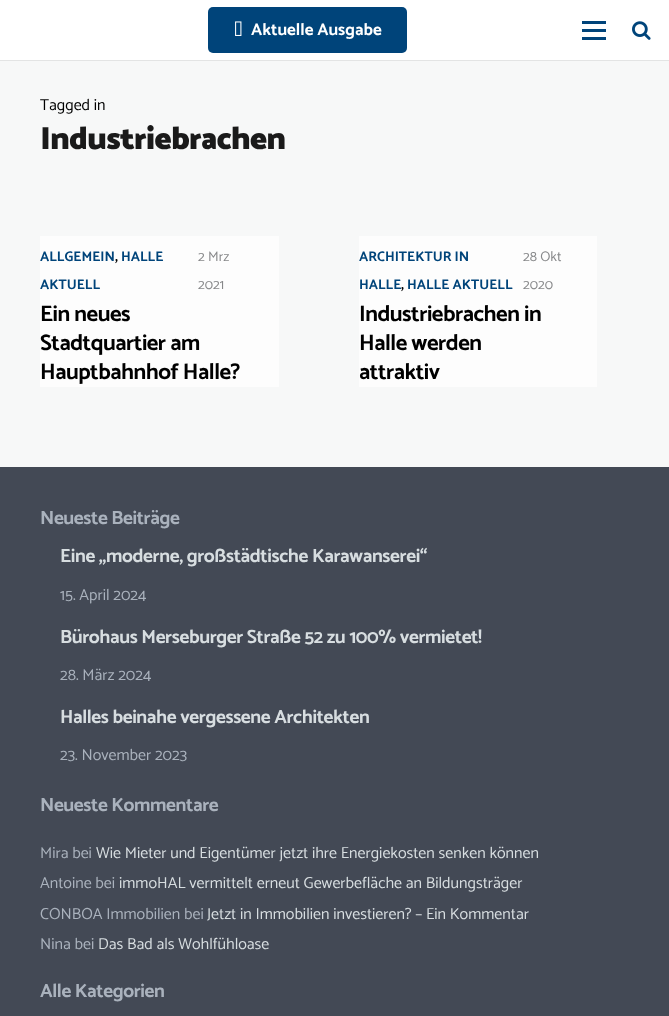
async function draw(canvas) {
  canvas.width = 669
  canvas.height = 1016
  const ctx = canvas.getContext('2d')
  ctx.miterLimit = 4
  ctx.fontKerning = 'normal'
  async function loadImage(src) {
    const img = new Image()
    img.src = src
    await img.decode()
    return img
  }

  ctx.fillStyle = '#f7f8f8'
  ctx.fillRect(0, 0, 669, 1016)
  ctx.fillStyle = '#e3e4e4'
  ctx.fillRect(0, 60, 669, 1)
  ctx.fillStyle = '#fff'
  ctx.fillRect(0, 0, 669, 60)
  ctx.fillStyle = '#00447a'
  ctx.beginPath()
  ctx.roundRect(208, 7, 199, 46, 5)
  ctx.fill()
  ctx.drawImage(await loadImage('image0.png'), 235, 21, 7, 15)
  ctx.font = 'bold 17px Catamaran'
  ctx.fillStyle = '#fff'
  ctx.fillText('Aktuelle Ausgabe', 251, 35)
  ctx.fillStyle = '#00447a'
  ctx.fillRect(582, 29, 24, 3)
  ctx.fillRect(582, 21, 24, 3)
  ctx.fillRect(582, 37, 24, 3)
  ctx.drawImage(await loadImage('image1.png'), 632, 21, 19, 19)
  ctx.font = '16px Catamaran'
  ctx.fillStyle = '#000'
  ctx.fillText('Tagged in', 40, 110)
  ctx.letterSpacing = '-0.6px'
  ctx.font = '900 32px Catamaran'
  ctx.fillStyle = '#1a1a1a'
  ctx.fillText('Industriebrachen', 40, 149)
  ctx.fillStyle = '#fdfdfd'
  ctx.fillRect(40, 236, 239, 151)
  ctx.letterSpacing = '0px'
  ctx.font = 'bold 14px Catamaran'
  ctx.fillStyle = '#00447a'
  ctx.fillText('ALLGEMEIN', 40, 261)
  ctx.fillStyle = '#000'
  ctx.fillText(',', 115, 261)
  ctx.fillStyle = '#00447a'
  ctx.fillText('HALLE', 121, 261)
  ctx.fillText('AKTUELL', 40, 289)
  ctx.font = '14px Catamaran'
  ctx.fillStyle = '#87888a'
  ctx.fillText('2 Mrz', 198, 261)
  ctx.fillText('2021', 198, 289)
  ctx.letterSpacing = '-0.5px'
  ctx.font = 'bold 22.5px Catamaran'
  ctx.fillStyle = '#000'
  ctx.fillText('Ein neues', 40, 321)
  ctx.fillText('Stadtquartier am', 40, 350)
  ctx.fillText('Hauptbahnhof Halle?', 40, 379)
  ctx.fillStyle = '#fdfdfd'
  ctx.fillRect(359, 236, 238, 151)
  ctx.letterSpacing = '0px'
  ctx.font = 'bold 14px Catamaran'
  ctx.fillStyle = '#00447a'
  ctx.fillText('ARCHITEKTUR IN', 359, 261)
  ctx.fillText('HALLE', 359, 289)
  ctx.fillStyle = '#000'
  ctx.fillText(',', 401, 289)
  ctx.fillStyle = '#00447a'
  ctx.fillText('HALLE AKTUELL', 407, 289)
  ctx.font = '14px Catamaran'
  ctx.fillStyle = '#87888a'
  ctx.fillText('28 Okt', 523, 261)
  ctx.fillText('2020', 523, 289)
  ctx.letterSpacing = '-0.5px'
  ctx.font = 'bold 22.5px Catamaran'
  ctx.fillStyle = '#000'
  ctx.fillText('Industriebrachen in', 359, 321)
  ctx.fillText('Halle werden', 359, 350)
  ctx.fillText('attraktiv', 359, 379)
  ctx.fillStyle = '#434955'
  ctx.fillRect(0, 467, 669, 549)
  ctx.letterSpacing = '-0.4px'
  ctx.font = 'bold 19.2px Catamaran'
  ctx.fillStyle = '#aab2bd'
  ctx.fillText('Neueste Beiträge', 40, 524)
  ctx.fillStyle = '#d7dde0'
  ctx.fillText('Eine „moderne, großstädtische Karawanserei“', 60, 562)
  ctx.letterSpacing = '0px'
  ctx.font = '16px Catamaran'
  ctx.fillStyle = '#aab2bd'
  ctx.fillText('15. April 2024', 60, 600)
  ctx.letterSpacing = '-0.4px'
  ctx.font = 'bold 19.2px Catamaran'
  ctx.fillStyle = '#d7dde0'
  ctx.fillText('Bürohaus Merseburger Straße 52 zu 100% vermietet!', 60, 643)
  ctx.letterSpacing = '0px'
  ctx.font = '16px Catamaran'
  ctx.fillStyle = '#aab2bd'
  ctx.fillText('28. März 2024', 60, 680)
  ctx.letterSpacing = '-0.4px'
  ctx.font = 'bold 19.2px Catamaran'
  ctx.fillStyle = '#d7dde0'
  ctx.fillText('Halles beinahe vergessene Architekten', 60, 723)
  ctx.letterSpacing = '0px'
  ctx.font = '16px Catamaran'
  ctx.fillStyle = '#aab2bd'
  ctx.fillText('23. November 2023', 60, 760)
  ctx.letterSpacing = '-0.4px'
  ctx.font = 'bold 19.2px Catamaran'
  ctx.fillText('Neueste Kommentare', 40, 811)
  ctx.letterSpacing = '0px'
  ctx.font = '16px Catamaran'
  ctx.fillText('Mira bei', 40, 858)
  ctx.fillStyle = '#d7dde0'
  ctx.fillText('Wie Mieter und Eigentümer jetzt ihre Energiekosten senken können', 96, 858)
  ctx.fillStyle = '#aab2bd'
  ctx.fillText('Antoine bei', 40, 888)
  ctx.fillStyle = '#d7dde0'
  ctx.fillText('immoHAL vermittelt erneut Gewerbefläche an Bildungsträger', 119, 888)
  ctx.fillStyle = '#aab2bd'
  ctx.fillText('CONBOA Immobilien bei', 40, 919)
  ctx.fillStyle = '#d7dde0'
  ctx.fillText('Jetzt in Immobilien investieren? – Ein Kommentar', 207, 919)
  ctx.fillStyle = '#aab2bd'
  ctx.fillText('Nina bei', 40, 949)
  ctx.fillStyle = '#d7dde0'
  ctx.fillText('Das Bad als Wohlfühloase', 98, 949)
  ctx.letterSpacing = '-0.4px'
  ctx.font = 'bold 19.2px Catamaran'
  ctx.fillStyle = '#aab2bd'
  ctx.fillText('Alle Kategorien', 40, 997)
}

draw(document.querySelector('canvas'))
